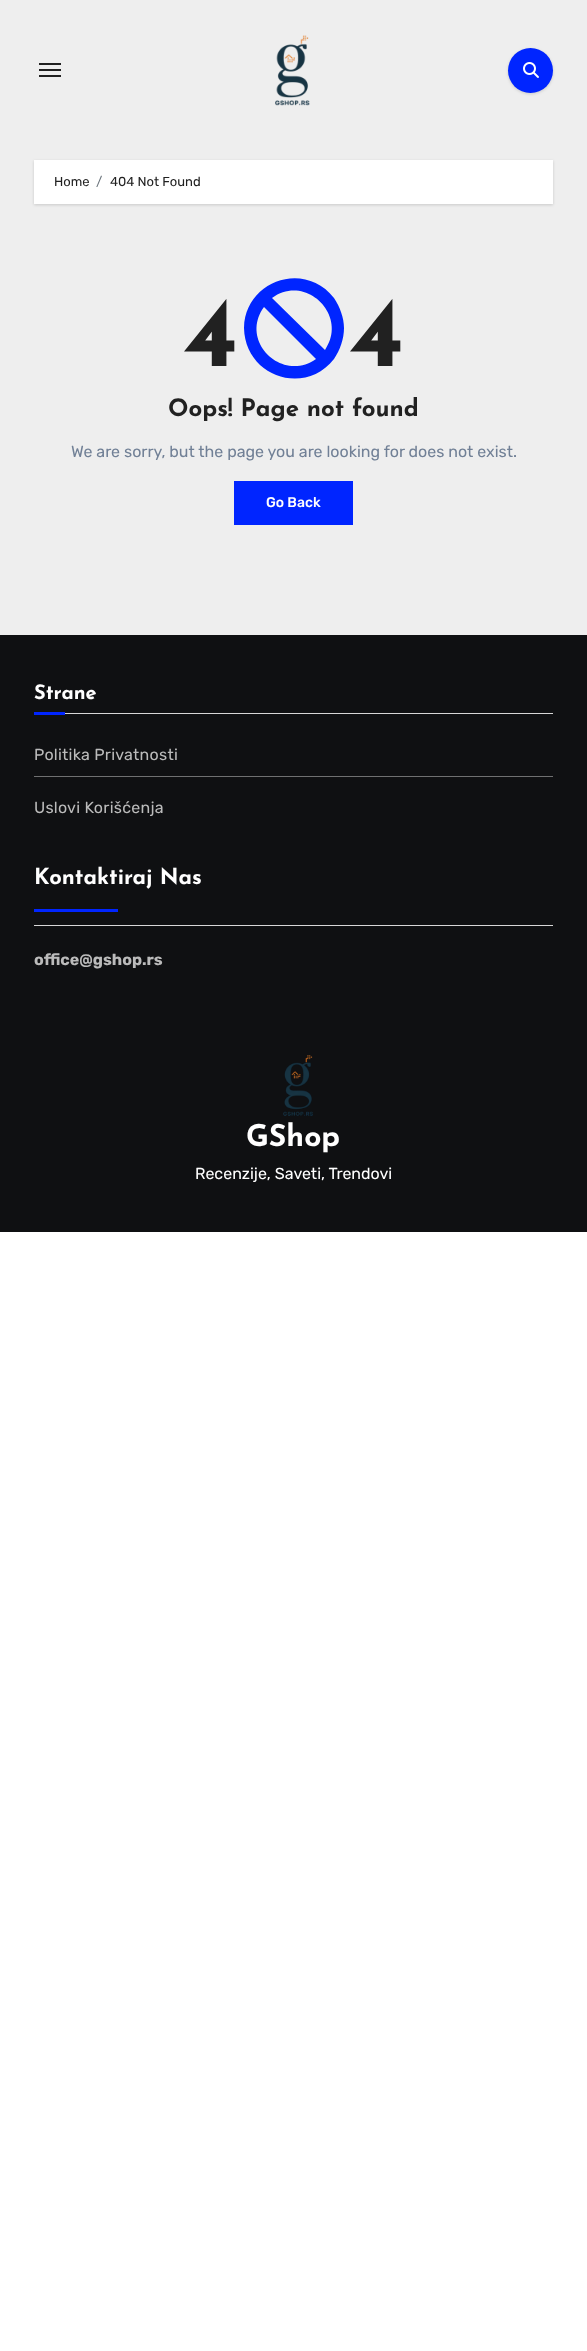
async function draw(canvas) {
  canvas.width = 587
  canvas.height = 2351
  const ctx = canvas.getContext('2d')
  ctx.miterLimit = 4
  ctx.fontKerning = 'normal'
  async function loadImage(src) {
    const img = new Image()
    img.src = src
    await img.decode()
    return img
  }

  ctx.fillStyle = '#fff'
  ctx.fillRect(0, 0, 587, 2351)
  ctx.fillStyle = '#eee'
  ctx.fillRect(0, 0, 587, 635)
  ctx.fillStyle = '#212121'
  ctx.fillRect(39, 63, 22, 2)
  ctx.fillRect(39, 69, 22, 2)
  ctx.fillRect(39, 75, 22, 2)
  ctx.drawImage(await loadImage('image0.png'), 275, 35, 35, 71)
  ctx.fillStyle = '#00000026'
  ctx.filter = 'blur(1.5px)'
  ctx.beginPath()
  ctx.roundRect(508, 49, 45, 45, 22.5)
  ctx.fill()
  ctx.filter = 'none'
  ctx.fillStyle = '#0025ff'
  ctx.beginPath()
  ctx.arc(530.5, 70.5, 22.5, 0, 2 * Math.PI)
  ctx.fill()
  ctx.drawImage(await loadImage('image1.png'), 523, 62, 16, 16)
  ctx.fillStyle = '#00000026'
  ctx.filter = 'blur(1.5px)'
  ctx.beginPath()
  ctx.rect(34, 161, 519, 44)
  ctx.fill()
  ctx.filter = 'none'
  ctx.fillStyle = '#fff'
  ctx.fillRect(34, 160, 519, 44)
  ctx.font = '300 13px Rubik'
  ctx.fillStyle = '#212121'
  ctx.fillText('Home', 54, 186)
  ctx.fillStyle = '#6c757d'
  ctx.fillText('/', 96, 186)
  ctx.fillStyle = '#212121'
  ctx.fillText('404 Not Found', 110, 186)
  ctx.font = 'bold 100px Josefin Sans'
  ctx.fillText('4', 183, 366)
  ctx.fillStyle = '#0025ff'
  ctx.beginPath()
  ctx.moveTo(316, 359)
  ctx.lineTo(264, 307)
  ctx.bezierCurveTo(239, 341, 282, 383, 316, 359)
  ctx.closePath()
  ctx.moveTo(325, 350)
  ctx.bezierCurveTo(349, 316, 306, 273, 272, 298)
  ctx.closePath()
  ctx.moveTo(244, 328)
  ctx.bezierCurveTo(245, 281, 304, 260, 334, 298)
  ctx.bezierCurveTo(340, 307, 344, 318, 344, 328)
  ctx.bezierCurveTo(344, 339, 340, 350, 334, 359)
  ctx.bezierCurveTo(304, 397, 245, 376, 244, 328)
  ctx.closePath()
  ctx.fill()
  ctx.fillStyle = '#212121'
  ctx.fillText('4', 349, 366)
  ctx.font = 'bold 24px Josefin Sans'
  ctx.fillText('Oops! Page not found', 168, 416)
  ctx.font = '300 16px Rubik'
  ctx.fillStyle = '#718096'
  ctx.fillText('We are sorry, but the page you are looking for does not exist.', 71, 457)
  ctx.fillStyle = '#0025ff'
  ctx.fillRect(234, 481, 119, 44)
  ctx.font = '500 14px Rubik'
  ctx.fillStyle = '#fff'
  ctx.fillText('Go Back', 266, 507)
  ctx.fillStyle = '#0f1012'
  ctx.fillRect(0, 635, 587, 597)
  ctx.fillStyle = '#d7d7d7'
  ctx.fillRect(65, 713, 488, 1)
  ctx.font = 'bold 20px Josefin Sans'
  ctx.fillStyle = '#fff'
  ctx.fillText('Strane', 34, 699)
  ctx.fillStyle = '#0025ff'
  ctx.fillRect(34, 712, 31, 3)
  ctx.fillStyle = '#6f7071'
  ctx.fillRect(34, 776, 519, 1)
  ctx.letterSpacing = '0.25px'
  ctx.font = '300 16px Rubik'
  ctx.fillStyle = '#bbb'
  ctx.fillText('Politika Privatnosti', 34, 760)
  ctx.fillText('Uslovi Korišćenja', 34, 813)
  ctx.fillStyle = '#d7d7d7'
  ctx.fillRect(34, 925, 519, 1)
  ctx.letterSpacing = '0px'
  ctx.font = 'bold 22px Josefin Sans'
  ctx.fillStyle = '#fff'
  ctx.fillText('Kontaktiraj Nas', 34, 884)
  ctx.fillStyle = '#0025ff'
  ctx.fillRect(34, 909, 84, 3)
  ctx.font = 'bold 16px Rubik'
  ctx.fillStyle = '#bbb'
  ctx.fillText('office@gshop.rs', 34, 965)
  ctx.drawImage(await loadImage('image2.png'), 283, 1055, 30, 61)
  ctx.font = 'bold 30px Josefin Sans'
  ctx.fillStyle = '#fff'
  ctx.fillText('GShop', 246, 1146)
  ctx.font = '300 16px Rubik'
  ctx.fillText('Recenzije, Saveti, Trendovi', 195, 1179)
}

draw(document.querySelector('canvas'))
